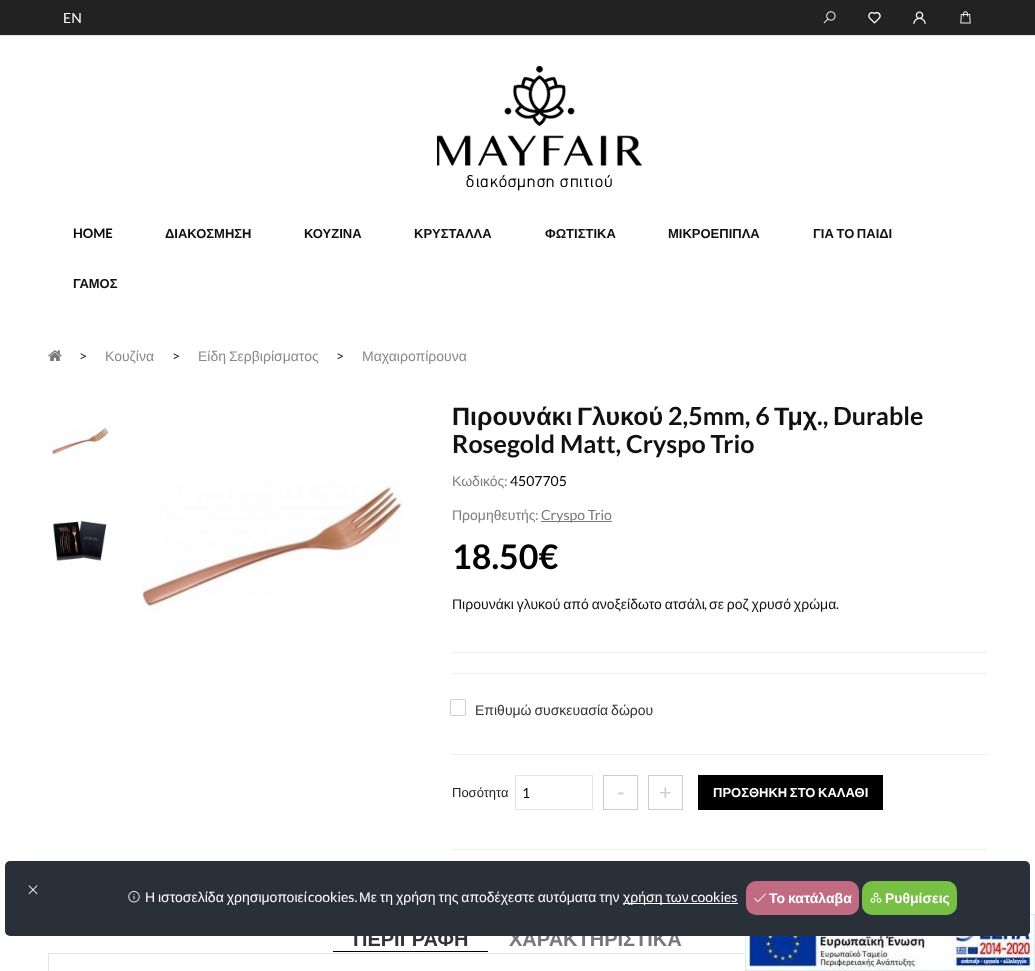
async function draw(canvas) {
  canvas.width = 1035
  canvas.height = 971
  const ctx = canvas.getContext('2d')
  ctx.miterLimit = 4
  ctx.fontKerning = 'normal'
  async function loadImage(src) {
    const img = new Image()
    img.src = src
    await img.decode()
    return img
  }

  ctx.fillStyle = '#fff'
  ctx.fillRect(0, 0, 1035, 971)
  ctx.fillStyle = '#222'
  ctx.fillRect(0, 0, 1035, 35)
  ctx.fillStyle = '#e5e5e5'
  ctx.fillRect(0, 35, 1035, 1)
  ctx.font = '14px Lato'
  ctx.fillStyle = '#fff'
  ctx.fillText('EN', 63, 23)
  ctx.drawImage(await loadImage('image0.png'), 823, 11, 13, 13)
  ctx.drawImage(await loadImage('image1.png'), 868, 11, 13, 13)
  ctx.drawImage(await loadImage('image2.png'), 913, 11, 13, 13)
  ctx.drawImage(await loadImage('image3.png'), 960, 11, 11, 13)
  ctx.drawImage(await loadImage('image4.png'), 437, 66, 205, 125)
  ctx.font = 'bold 13px Lato'
  ctx.fillStyle = '#000'
  ctx.fillText('HOME', 73, 238)
  ctx.font = 'bold 13px Liberation Sans'
  ctx.fillStyle = '#111'
  ctx.fillText('ΔΙΑΚΟΣΜΗΣΗ', 165, 238)
  ctx.fillText('ΚΟΥΖΙΝΑ', 304, 238)
  ctx.fillText('ΚΡΥΣΤΑΛΛΑ', 414, 238)
  ctx.fillText('ΦΩΤΙΣΤΙΚΑ', 545, 238)
  ctx.fillText('ΜΙΚΡΟΕΠΙΠΛΑ', 668, 238)
  ctx.wordSpacing = '-1px'
  ctx.fillText('ΓΙΑ ΤΟ ΠΑΙΔΙ', 813, 238)
  ctx.wordSpacing = '0px'
  ctx.fillText('ΓΑΜΟΣ', 73, 288)
  ctx.drawImage(await loadImage('image5.png'), 48, 350, 14, 11)
  ctx.font = '14px Lato'
  ctx.fillStyle = '#222'
  ctx.fillText('>', 79, 361)
  ctx.font = '14px Liberation Sans'
  ctx.fillStyle = '#898989'
  ctx.fillText('Κουζίνα', 105, 361)
  ctx.font = '14px Lato'
  ctx.fillStyle = '#222'
  ctx.fillText('>', 172, 361)
  ctx.wordSpacing = '-1px'
  ctx.font = '14px Liberation Sans'
  ctx.fillStyle = '#898989'
  ctx.fillText('Είδη Σερβιρίσματος', 198, 361)
  ctx.wordSpacing = '0px'
  ctx.font = '14px Lato'
  ctx.fillStyle = '#222'
  ctx.fillText('>', 336, 361)
  ctx.font = '14px Liberation Sans'
  ctx.fillStyle = '#898989'
  ctx.fillText('Μαχαιροπίρουνα', 362, 361)
  ctx.drawImage(await loadImage('image6.png'), 48, 427, 63, 31)
  ctx.drawImage(await loadImage('image7.png'), 53, 521, 54, 45)
  ctx.drawImage(await loadImage('image8.png'), 142, 482, 260, 129)
  ctx.font = 'bold 25px Liberation Sans'
  ctx.fillStyle = '#111'
  ctx.fillText('Πιρουνάκι', 452, 425)
  ctx.fillText('Γλυκού', 577, 425)
  ctx.font = 'bold 25px Lato'
  ctx.fillText('2,5mm, 6', 668, 425)
  ctx.font = 'bold 25px Liberation Sans'
  ctx.fillText('Τμχ', 774, 425)
  ctx.font = 'bold 25px Lato'
  ctx.fillText('., Durable', 817, 425)
  ctx.fillText('Rosegold Matt, Cryspo Trio', 452, 453)
  ctx.font = '14px Liberation Sans'
  ctx.fillStyle = '#7d7d7d'
  ctx.fillText('Κωδικός', 452, 486)
  ctx.font = '14px Lato'
  ctx.fillText(':', 504, 486)
  ctx.fillStyle = '#000'
  ctx.fillText('4507705', 510, 486)
  ctx.font = '14px Liberation Sans'
  ctx.fillStyle = '#7d7d7d'
  ctx.fillText('Προμηθευτής', 452, 520)
  ctx.font = '14px Lato'
  ctx.fillText(':', 535, 520)
  ctx.fillStyle = '#777'
  ctx.fillRect(541, 521, 71, 1)
  ctx.fillText('Cryspo Trio', 541, 520)
  ctx.font = 'bold 34px Lato'
  ctx.fillStyle = '#000'
  ctx.fillText('18.50€', 452, 569)
  ctx.wordSpacing = '-1px'
  ctx.font = '14px Liberation Sans'
  ctx.fillStyle = '#111'
  ctx.fillText('Πιρουνάκι γλυκού από ανοξείδωτο ατσάλι', 452, 609)
  ctx.wordSpacing = '0px'
  ctx.font = '14px Lato'
  ctx.fillText(',', 704, 609)
  ctx.wordSpacing = '-1px'
  ctx.font = '14px Liberation Sans'
  ctx.fillText('σε ροζ χρυσό χρώμα', 709, 609)
  ctx.wordSpacing = '0px'
  ctx.font = '14px Lato'
  ctx.fillText('.', 836, 609)
  ctx.fillStyle = '#eee'
  ctx.fillRect(452, 652, 535, 1)
  ctx.fillRect(452, 673, 535, 1)
  ctx.beginPath()
  ctx.roundRect(450.5, 699.5, 15, 16, 1.5)
  ctx.strokeStyle = '#ccc'
  ctx.stroke()
  ctx.wordSpacing = '-1px'
  ctx.font = '14px Liberation Sans'
  ctx.fillStyle = '#333'
  ctx.fillText('Επιθυμώ συσκευασία δώρου', 475, 715)
  ctx.fillStyle = '#eee'
  ctx.fillRect(452, 754, 535, 1)
  ctx.wordSpacing = '0px'
  ctx.font = '13px Liberation Sans'
  ctx.fillStyle = '#222'
  ctx.fillText('Ποσότητα', 452, 797)
  ctx.strokeStyle = '#e5e5e5'
  ctx.strokeRect(515.5, 775.5, 77, 34)
  ctx.font = '14px Lato'
  ctx.fillStyle = '#000'
  ctx.fillText('1', 522, 798)
  ctx.strokeStyle = '#ccc'
  ctx.strokeRect(603.5, 775.5, 34, 34)
  ctx.font = '22px Lato'
  ctx.fillStyle = '#ccc'
  ctx.fillText('-', 617, 800)
  ctx.strokeRect(648.5, 775.5, 34, 34)
  ctx.fillText('+', 659, 800)
  ctx.fillStyle = '#000'
  ctx.fillRect(698, 775, 185, 35)
  ctx.wordSpacing = '-1px'
  ctx.font = 'bold 13px Liberation Sans'
  ctx.fillStyle = '#fff'
  ctx.fillText('ΠΡΟΣΘΗΚΗ ΣΤΟ ΚΑΛΑΘΙ', 713, 797)
  ctx.fillStyle = '#eee'
  ctx.fillRect(452, 849, 535, 1)
  ctx.wordSpacing = '0px'
  ctx.font = 'bold 20px Liberation Sans'
  ctx.fillStyle = '#333'
  ctx.fillText('ΠΕΡΙΓΡΑΦΗ', 353, 946)
  ctx.fillStyle = '#777'
  ctx.fillText('ΧΑΡΑΚΤΗΡΙΣΤΙΚΑ', 509, 946)
  ctx.strokeStyle = '#e5e5e5'
  ctx.strokeRect(48.5, 953.5, 939, 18)
  ctx.drawImage(await loadImage('image13.png'), 745, 914, 290, 57)
  ctx.fillStyle = '#293039'
  ctx.beginPath()
  ctx.roundRect(5, 861, 1025, 75, 5)
  ctx.fill()
  ctx.drawImage(await loadImage('image9.png'), 28, 885, 10, 10)
  ctx.drawImage(await loadImage('image10.png'), 128, 891, 12, 12)
  ctx.wordSpacing = '-1px'
  ctx.font = '14px Liberation Sans'
  ctx.fillStyle = '#fff'
  ctx.fillText('Η ιστοσελίδα χρησιμοποιεί', 145, 902)
  ctx.wordSpacing = '0px'
  ctx.font = '14px Lato'
  ctx.fillText('cookies.', 308, 902)
  ctx.wordSpacing = '-1px'
  ctx.font = '14px Liberation Sans'
  ctx.fillText('Με τη χρήση της αποδέχεστε αυτόματα την', 359, 902)
  ctx.fillRect(623, 903, 115, 1)
  ctx.fillText('χρήση των', 623, 902)
  ctx.wordSpacing = '0px'
  ctx.font = '14px Lato'
  ctx.fillText('cookies', 691, 902)
  ctx.fillStyle = '#c06b81'
  ctx.beginPath()
  ctx.roundRect(746, 881, 113, 34, 10)
  ctx.fill()
  ctx.drawImage(await loadImage('image11.png'), 754, 893, 12, 10)
  ctx.wordSpacing = '-1px'
  ctx.font = 'bold 14px Liberation Sans'
  ctx.fillStyle = '#fff'
  ctx.fillText('Το κατάλαβα', 769, 903)
  ctx.fillStyle = '#78c043'
  ctx.beginPath()
  ctx.roundRect(862, 881, 95, 34, 10)
  ctx.fill()
  ctx.drawImage(await loadImage('image12.png'), 870, 892, 12, 11)
  ctx.wordSpacing = '0px'
  ctx.fillStyle = '#fff'
  ctx.fillText('Ρυθμίσεις', 885, 903)
  ctx.fillStyle = '#000'
  ctx.fillRect(333, 951, 155, 1)
}

draw(document.querySelector('canvas'))
